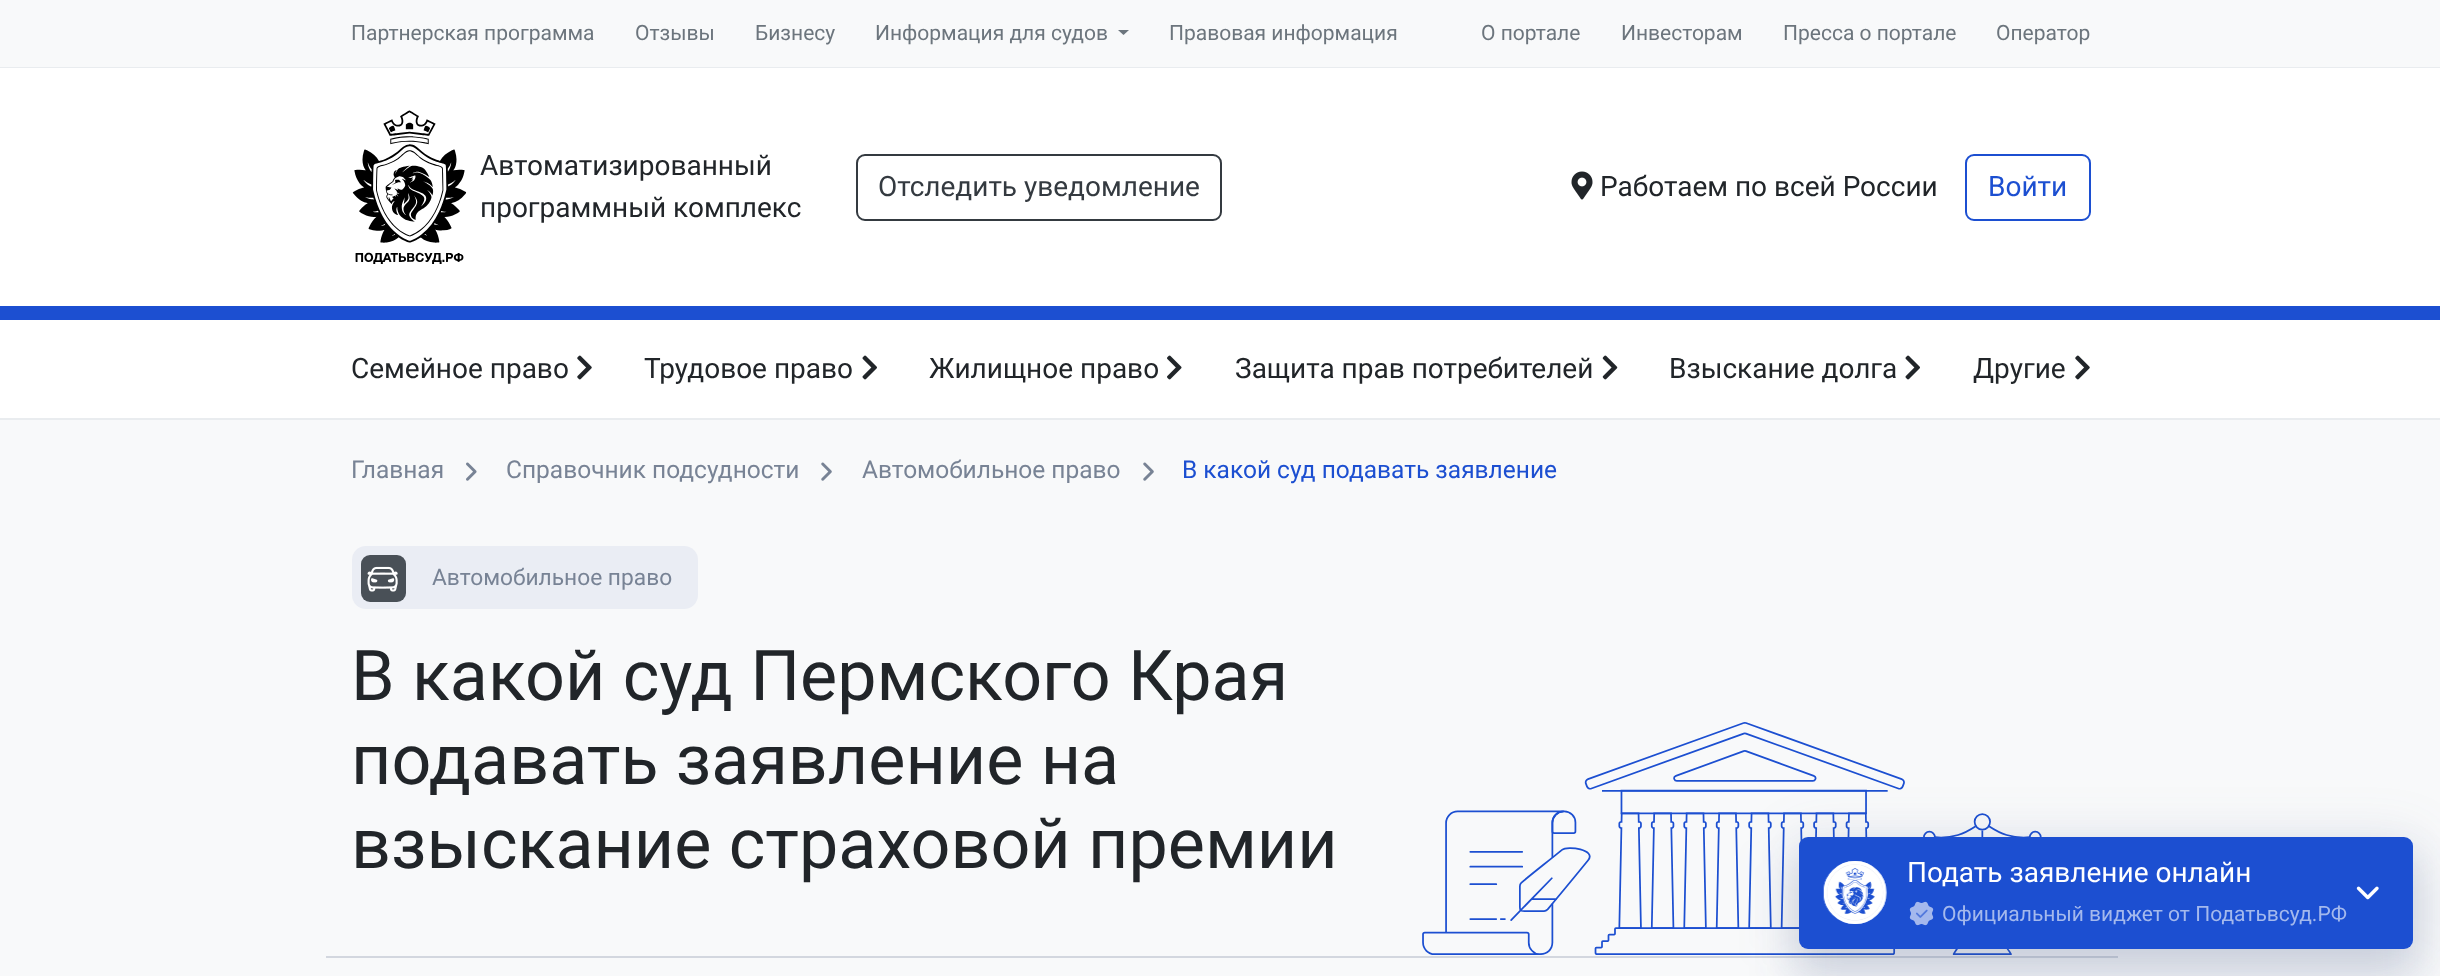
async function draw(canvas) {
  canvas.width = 2440
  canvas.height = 976
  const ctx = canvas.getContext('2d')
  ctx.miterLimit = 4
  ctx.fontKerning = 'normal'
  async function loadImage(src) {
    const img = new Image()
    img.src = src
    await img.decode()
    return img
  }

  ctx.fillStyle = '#fff'
  ctx.fillRect(0, 0, 2440, 976)
  ctx.fillStyle = '#f8f9fa'
  ctx.fillRect(0, 0, 2440, 67)
  ctx.fillStyle = '#e9ecef'
  ctx.fillRect(0, 67, 2440, 1)
  ctx.font = '21px Roboto'
  ctx.fillStyle = '#6c757d'
  ctx.fillText('Партнерская программа', 351, 40)
  ctx.fillText('Отзывы', 635, 40)
  ctx.fillText('Бизнесу', 755, 40)
  ctx.fillText('Информация для судов', 875, 40)
  ctx.beginPath()
  ctx.moveTo(1118, 30)
  ctx.lineTo(1129, 30)
  ctx.lineTo(1123.5, 35)
  ctx.closePath()
  ctx.fill()
  ctx.fillText('Правовая информация', 1169, 40)
  ctx.fillText('О портале', 1481, 40)
  ctx.fillText('Инвесторам', 1621, 40)
  ctx.fillText('Пресса о портале', 1783, 40)
  ctx.fillText('Оператор', 1996, 40)
  ctx.fillStyle = '#1c4fd1'
  ctx.fillRect(0, 306, 2440, 14)
  ctx.drawImage(await loadImage('image0.png'), 352, 110, 115, 154)
  ctx.font = '28px Roboto'
  ctx.fillStyle = '#212529'
  ctx.fillText('Автоматизированный', 480, 175)
  ctx.fillText('программный комплекс', 480, 217)
  ctx.beginPath()
  ctx.roundRect(857, 155, 364, 65, 8)
  ctx.strokeStyle = '#343a40'
  ctx.lineWidth = 2
  ctx.stroke()
  ctx.fillStyle = '#343a40'
  ctx.fillText('Отследить уведомление', 878, 196)
  ctx.drawImage(await loadImage('image1.png'), 1571, 171, 22, 29)
  ctx.fillStyle = '#212529'
  ctx.fillText('Работаем по всей России', 1600, 196)
  ctx.beginPath()
  ctx.roundRect(1966, 155, 124, 65, 8)
  ctx.strokeStyle = '#1c4fd1'
  ctx.stroke()
  ctx.fillStyle = '#1c4fd1'
  ctx.fillText('Войти', 1988, 196)
  ctx.fillStyle = '#e9ecef'
  ctx.fillRect(0, 418, 2440, 2)
  ctx.fillStyle = '#212529'
  ctx.fillText('Семейное право', 351, 378)
  ctx.drawImage(await loadImage('image2.png'), 577, 355, 15, 25)
  ctx.fillText('Трудовое право', 644, 378)
  ctx.drawImage(await loadImage('image3.png'), 862, 355, 15, 25)
  ctx.fillText('Жилищное право', 929, 378)
  ctx.drawImage(await loadImage('image4.png'), 1167, 355, 15, 25)
  ctx.fillText('Защита прав потребителей', 1235, 378)
  ctx.drawImage(await loadImage('image5.png'), 1602, 355, 16, 25)
  ctx.fillText('Взыскание долга', 1669, 378)
  ctx.drawImage(await loadImage('image3.png'), 1905, 355, 15, 25)
  ctx.fillText('Другие', 1973, 378)
  ctx.drawImage(await loadImage('image2.png'), 2075, 355, 15, 25)
  ctx.fillStyle = '#f8f9fa'
  ctx.fillRect(0, 420, 2440, 556)
  ctx.font = '24.5px Roboto'
  ctx.fillStyle = '#788395'
  ctx.fillText('Главная', 351, 478)
  ctx.drawImage(await loadImage('image6.png'), 466, 462, 11, 19)
  ctx.fillText('Справочник подсудности', 506, 478)
  ctx.drawImage(await loadImage('image7.png'), 821, 462, 11, 19)
  ctx.fillText('Автомобильное право', 862, 478)
  ctx.drawImage(await loadImage('image7.png'), 1143, 462, 11, 19)
  ctx.fillStyle = '#1c4fd1'
  ctx.fillText('В какой суд подавать заявление', 1182, 478)
  ctx.fillStyle = '#eaedf4'
  ctx.beginPath()
  ctx.roundRect(352, 546, 346, 63, 14)
  ctx.fill()
  ctx.fillStyle = '#495057'
  ctx.beginPath()
  ctx.roundRect(361, 555, 45, 47, 9)
  ctx.fill()
  ctx.drawImage(await loadImage('image8.png'), 367, 566, 31, 26)
  ctx.font = '22.75px Roboto'
  ctx.fillStyle = '#788395'
  ctx.fillText('Автомобильное право', 432, 585)
  ctx.fillStyle = '#d3d7df'
  ctx.fillRect(326, 956, 1792, 2)
  ctx.font = '70px Roboto'
  ctx.fillStyle = '#212529'
  ctx.fillText('В какой суд Пермского Края', 351, 700)
  ctx.fillText('подавать заявление на', 351, 784)
  ctx.fillText('взыскание страховой премии', 351, 868)
  ctx.drawImage(await loadImage('image9.png'), 1422, 722, 620, 233)
  ctx.fillStyle = '#364c7e1f'
  ctx.filter = 'blur(26px)'
  ctx.beginPath()
  ctx.roundRect(1790, 838, 632, 130, 18)
  ctx.fill()
  ctx.filter = 'none'
  ctx.fillStyle = '#364c7e24'
  ctx.filter = 'blur(21px)'
  ctx.beginPath()
  ctx.roundRect(1796, 861, 621, 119, 12)
  ctx.fill()
  ctx.filter = 'none'
  ctx.fillStyle = '#1c4fd1'
  ctx.beginPath()
  ctx.roundRect(1799, 837, 614, 112, 9)
  ctx.fill()
  ctx.drawImage(await loadImage('image10.png'), 1823, 861, 64, 63)
  ctx.font = '28px Roboto'
  ctx.fillStyle = '#fff'
  ctx.fillText('Подать заявление онлайн', 1907, 882)
  ctx.drawImage(await loadImage('image11.png'), 1909, 901, 25, 25)
  ctx.font = '21px Roboto'
  ctx.fillStyle = '#a4b9ed'
  ctx.fillText('Официальный виджет от Податьвсуд.РФ', 1942, 921)
  ctx.drawImage(await loadImage('image12.png'), 2356, 886, 23, 14)
}

draw(document.querySelector('canvas'))
